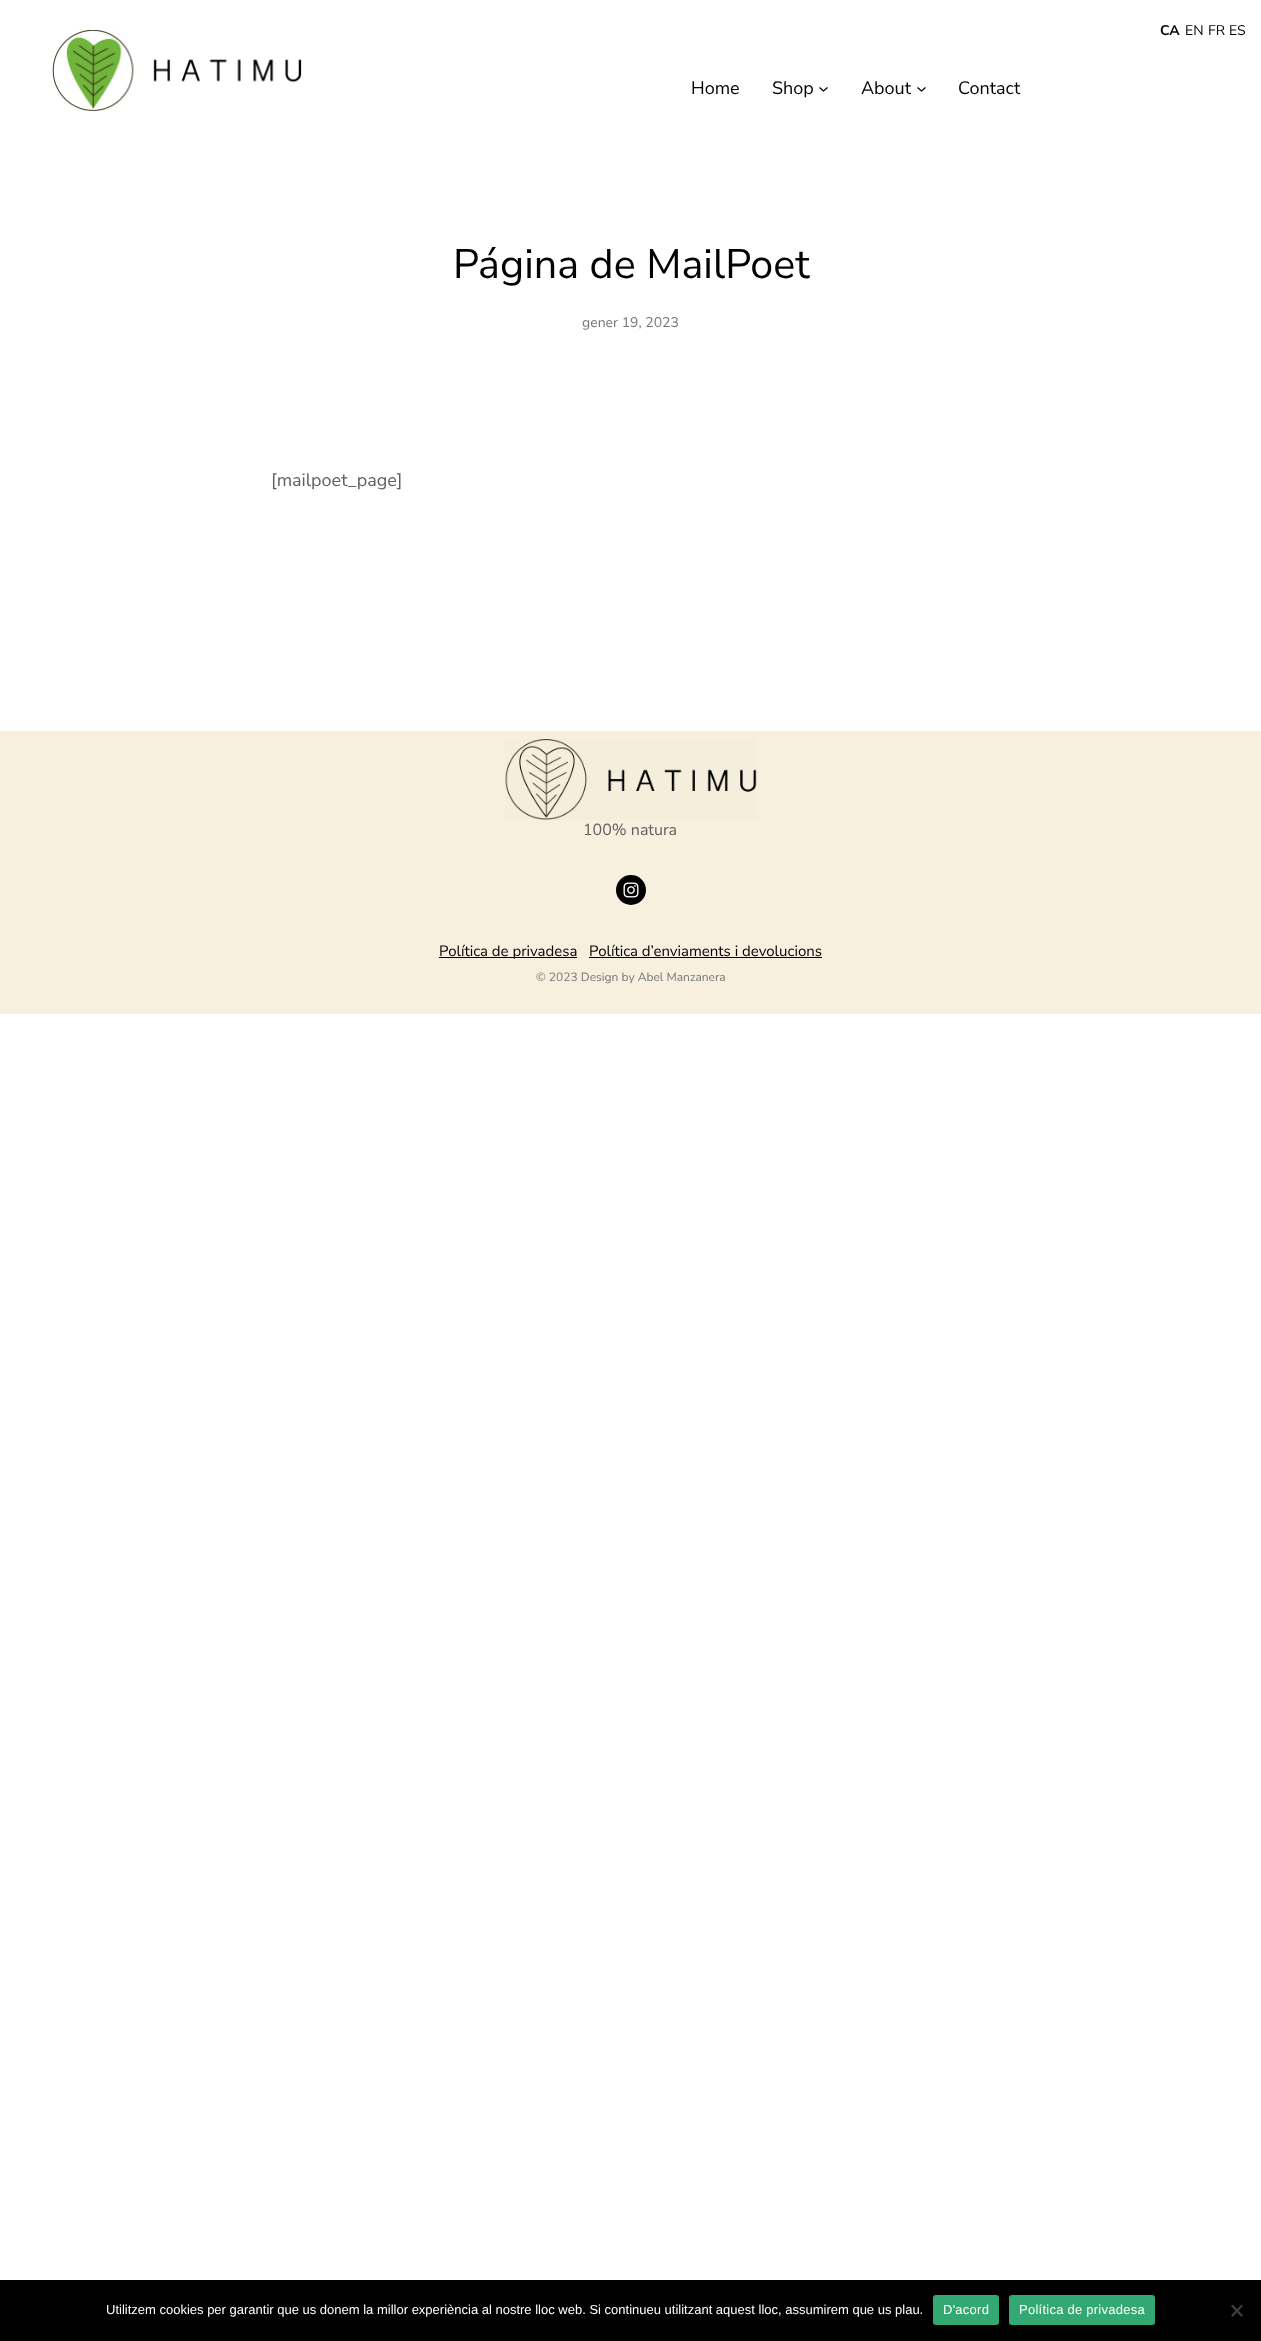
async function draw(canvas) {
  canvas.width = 1261
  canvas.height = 2341
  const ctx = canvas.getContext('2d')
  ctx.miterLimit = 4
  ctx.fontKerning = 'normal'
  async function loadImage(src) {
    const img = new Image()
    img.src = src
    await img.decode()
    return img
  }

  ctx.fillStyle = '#fff'
  ctx.fillRect(0, 0, 1261, 2341)
  ctx.font = 'bold 14px Nunito Sans'
  ctx.fillStyle = '#020202'
  ctx.fillText('CA', 1160, 35)
  ctx.font = '14px Nunito Sans'
  ctx.fillText('EN', 1185, 35)
  ctx.fillText('FR', 1208, 35)
  ctx.fillText('ES', 1229, 35)
  ctx.drawImage(await loadImage('image0.png'), 52, 30, 250, 81)
  ctx.font = '18px Nunito Sans'
  ctx.fillText('Home', 691, 94)
  ctx.fillText('Shop', 772, 94)
  ctx.beginPath()
  ctx.moveTo(819.5, 87.5)
  ctx.lineTo(823.5, 91)
  ctx.lineTo(827.5, 87.5)
  ctx.strokeStyle = '#000'
  ctx.lineWidth = 1.3
  ctx.stroke()
  ctx.fillText('About', 861, 94)
  ctx.beginPath()
  ctx.moveTo(917.5, 87.5)
  ctx.lineTo(921.5, 91)
  ctx.lineTo(925.5, 87.5)
  ctx.stroke()
  ctx.fillText('Contact', 958, 94)
  ctx.font = '41.25px Nunito Sans'
  ctx.fillText('Página de MailPoet', 453, 278)
  ctx.font = '14px Nunito Sans'
  ctx.fillStyle = '#767676'
  ctx.fillText('gener 19, 2023', 582, 327)
  ctx.font = '18px Nunito Sans'
  ctx.fillStyle = '#606060'
  ctx.fillText('[mailpoet_page]', 271, 486)
  ctx.fillStyle = '#f7f0df'
  ctx.fillRect(0, 731, 1261, 283)
  ctx.drawImage(await loadImage('image1.png'), 505, 739, 252, 81)
  ctx.font = '16px Nunito Sans'
  ctx.fillStyle = '#606060'
  ctx.fillText('100% natura', 583, 835)
  ctx.fillStyle = '#000'
  ctx.beginPath()
  ctx.arc(631, 890, 15, 0, 2 * Math.PI)
  ctx.fill()
  ctx.drawImage(await loadImage('image2.png'), 623, 882, 16, 16)
  ctx.fillStyle = '#020202'
  ctx.fillRect(439, 957, 138, 1)
  ctx.font = '15px Nunito Sans'
  ctx.fillText('Política de privadesa', 439, 956)
  ctx.fillText('Política d’enviaments i devolucions', 589, 956)
  ctx.fillRect(589, 957, 233, 1)
  ctx.font = '12px Nunito Sans'
  ctx.fillStyle = '#767676'
  ctx.fillText('© 2023 Design by Abel Manzanera', 536, 981)
  ctx.fillStyle = '#000'
  ctx.fillRect(0, 2280, 1261, 61)
  ctx.font = '13px Liberation Sans'
  ctx.fillStyle = '#fff'
  ctx.fillText('Utilitzem cookies per garantir que us donem la millor experiència al nostre lloc web. Si continueu utilitzant aquest lloc, assumirem que us plau.', 106, 2314)
  ctx.fillStyle = '#34a872'
  ctx.beginPath()
  ctx.roundRect(933, 2295, 66, 30, 3)
  ctx.fill()
  ctx.letterSpacing = '0.25px'
  ctx.fillStyle = '#fff'
  ctx.fillText('D\'acord', 943, 2314)
  ctx.fillStyle = '#34a872'
  ctx.beginPath()
  ctx.roundRect(1009, 2295, 146, 30, 3)
  ctx.fill()
  ctx.fillStyle = '#fff'
  ctx.fillText('Política de privadesa', 1019, 2314)
  ctx.fillStyle = '#404040'
  ctx.beginPath()
  ctx.moveTo(1241.5, 2304.5)
  ctx.lineTo(1243, 2306)
  ctx.lineTo(1232.5, 2317)
  ctx.lineTo(1231, 2315.5)
  ctx.closePath()
  ctx.fill()
  ctx.beginPath()
  ctx.moveTo(1231, 2306)
  ctx.lineTo(1232.5, 2304.5)
  ctx.lineTo(1243, 2315.5)
  ctx.lineTo(1241.5, 2317)
  ctx.closePath()
  ctx.fill()
}

draw(document.querySelector('canvas'))
